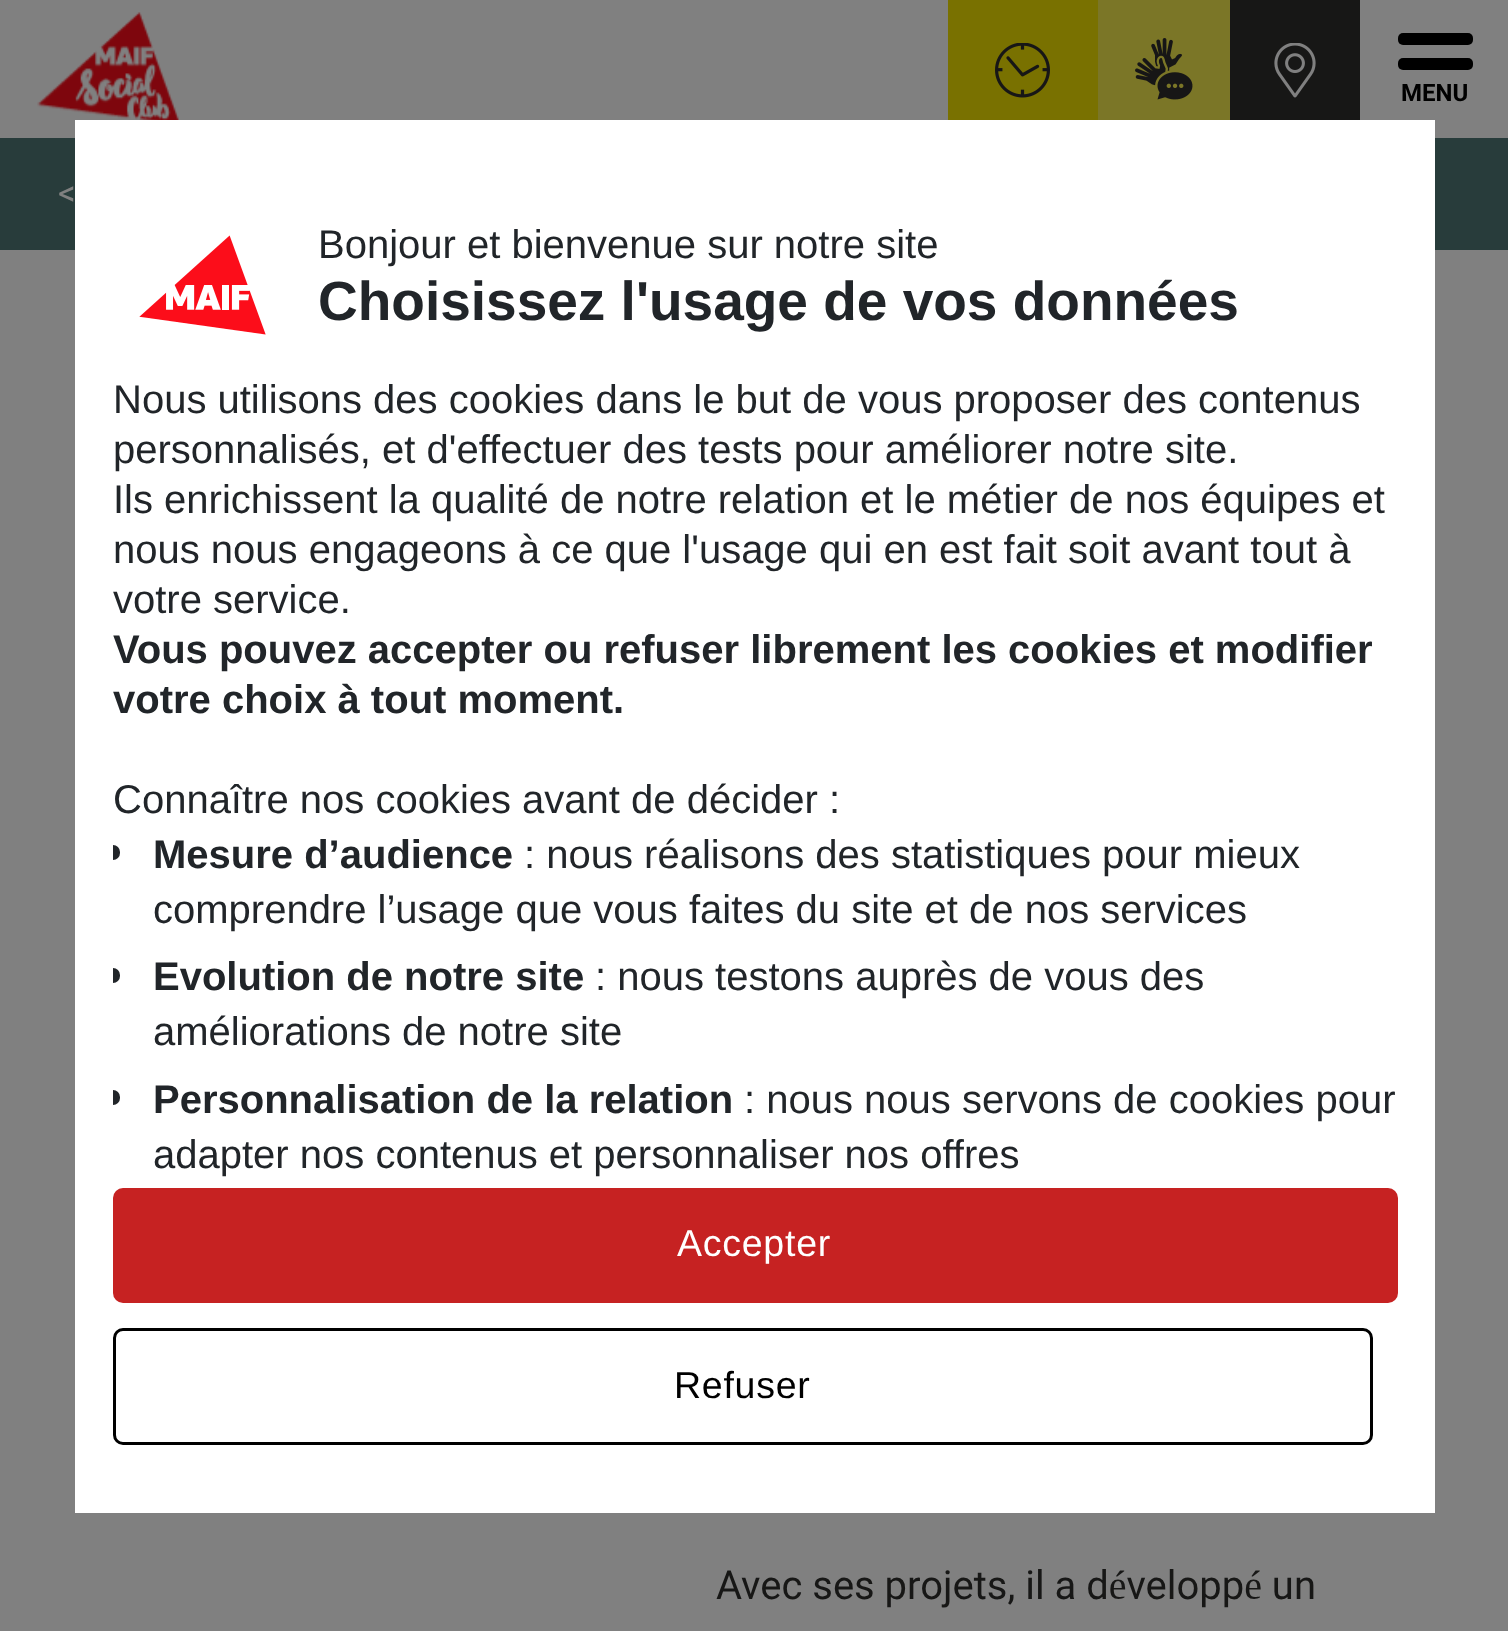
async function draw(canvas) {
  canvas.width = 1508
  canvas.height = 1631
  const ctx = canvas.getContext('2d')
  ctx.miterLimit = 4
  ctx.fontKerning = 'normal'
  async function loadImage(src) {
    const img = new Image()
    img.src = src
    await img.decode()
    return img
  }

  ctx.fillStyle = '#808080'
  ctx.fillRect(0, 0, 1508, 1631)
  ctx.drawImage(await loadImage('image0.png'), 37, 12, 143, 108)
  ctx.fillStyle = '#797100'
  ctx.fillRect(948, 0, 150, 120)
  ctx.drawImage(await loadImage('image1.png'), 995, 43, 55, 55)
  ctx.fillStyle = '#7b7627'
  ctx.fillRect(1098, 0, 132, 120)
  ctx.drawImage(await loadImage('image2.png'), 1135, 38, 58, 62)
  ctx.fillStyle = '#171716'
  ctx.fillRect(1230, 0, 130, 120)
  ctx.drawImage(await loadImage('image3.png'), 1274, 43, 42, 55)
  ctx.fillStyle = '#000'
  ctx.beginPath()
  ctx.roundRect(1398, 33, 75, 12, 5)
  ctx.fill()
  ctx.beginPath()
  ctx.roundRect(1398, 58, 75, 12, 5)
  ctx.fill()
  ctx.font = 'bold 24px Roboto'
  ctx.fillText('MENU', 1401, 101)
  ctx.fillStyle = '#283c3b'
  ctx.fillRect(0, 138, 1508, 112)
  ctx.font = '35px Roboto'
  ctx.fillStyle = '#808080'
  ctx.fillText('<', 58, 205)
  ctx.font = '40px Roboto'
  ctx.fillStyle = '#171716'
  ctx.fillText('Avec ses projets, il a développé un', 716, 1599)
  ctx.fillStyle = '#fff'
  ctx.fillRect(75, 120, 1360, 1393)
  ctx.drawImage(await loadImage('image4.png'), 139, 235, 127, 100)
  ctx.font = '40px Liberation Sans'
  ctx.fillStyle = '#212529'
  ctx.fillText('Bonjour et bienvenue sur notre site', 318, 258)
  ctx.font = 'bold 55px Liberation Sans'
  ctx.fillText('Choisissez l\'usage de vos données', 318, 320)
  ctx.font = '40px Liberation Sans'
  ctx.fillText('Nous utilisons des cookies dans le but de vous proposer des contenus', 113, 413)
  ctx.fillText('personnalisés, et d\'effectuer des tests pour améliorer notre site.', 113, 463)
  ctx.fillText('Ils enrichissent la qualité de notre relation et le métier de nos équipes et', 113, 513)
  ctx.fillText('nous nous engageons à ce que l\'usage qui en est fait soit avant tout à', 113, 563)
  ctx.fillText('votre service.', 113, 613)
  ctx.font = 'bold 40px Liberation Sans'
  ctx.fillText('Vous pouvez accepter ou refuser librement les cookies et modifier', 113, 663)
  ctx.fillText('votre choix à tout moment.', 113, 713)
  ctx.font = '40px Liberation Sans'
  ctx.fillText('Connaître nos cookies avant de décider :', 113, 813)
  ctx.beginPath()
  ctx.roundRect(113, 845, 7, 15, [0, 7.5, 7.5, 0])
  ctx.fill()
  ctx.font = 'bold 40px Liberation Sans'
  ctx.fillText('Mesure d’audience', 153, 868)
  ctx.font = '40px Liberation Sans'
  ctx.fillText(': nous réalisons des statistiques pour mieux', 524, 868)
  ctx.fillText('comprendre l’usage que vous faites du site et de nos services', 153, 923)
  ctx.beginPath()
  ctx.roundRect(113, 968, 7, 15, [0, 7.5, 7.5, 0])
  ctx.fill()
  ctx.font = 'bold 40px Liberation Sans'
  ctx.fillText('Evolution de notre site', 153, 990)
  ctx.font = '40px Liberation Sans'
  ctx.fillText(': nous testons auprès de vous des', 595, 990)
  ctx.fillText('améliorations de notre site', 153, 1045)
  ctx.beginPath()
  ctx.roundRect(113, 1090, 7, 15, [0, 7.5, 7.5, 0])
  ctx.fill()
  ctx.font = 'bold 40px Liberation Sans'
  ctx.fillText('Personnalisation de la relation', 153, 1113)
  ctx.font = '40px Liberation Sans'
  ctx.fillText(': nous nous servons de cookies pour', 744, 1113)
  ctx.fillText('adapter nos contenus et personnaliser nos offres', 153, 1168)
  ctx.fillStyle = '#c62222'
  ctx.beginPath()
  ctx.roundRect(113, 1188, 1285, 115, 10)
  ctx.fill()
  ctx.letterSpacing = '0.75px'
  ctx.font = '37.5px Liberation Sans'
  ctx.fillStyle = '#fff'
  ctx.fillText('Accepter', 677, 1256)
  ctx.beginPath()
  ctx.roundRect(114.5, 1329.5, 1257, 114, 8.5)
  ctx.strokeStyle = '#000'
  ctx.lineWidth = 3
  ctx.stroke()
  ctx.fillStyle = '#000'
  ctx.fillText('Refuser', 674, 1398)
}

draw(document.querySelector('canvas'))
